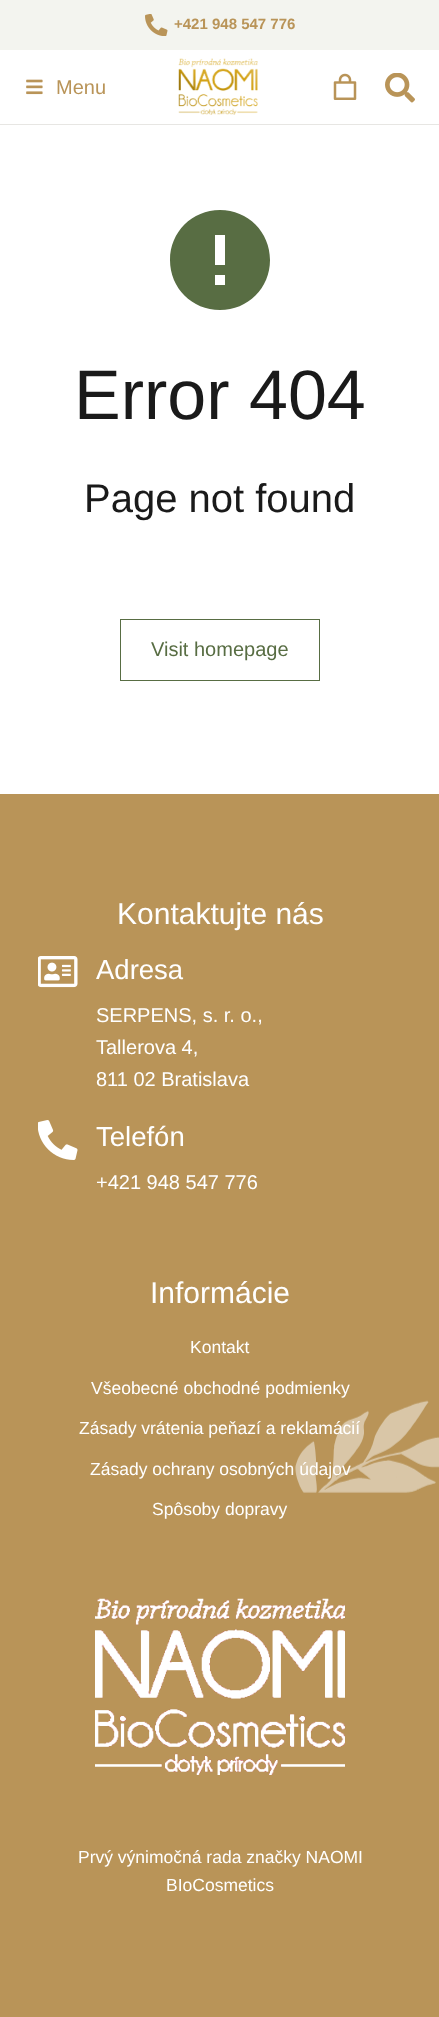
async function draw(canvas) {
  canvas.width = 439
  canvas.height = 2017
  const ctx = canvas.getContext('2d')
  ctx.miterLimit = 4
  ctx.fontKerning = 'normal'
  async function loadImage(src) {
    const img = new Image()
    img.src = src
    await img.decode()
    return img
  }

  ctx.fillStyle = '#fff'
  ctx.fillRect(0, 0, 439, 2017)
  ctx.fillStyle = '#e7e6e3'
  ctx.fillRect(0, 124, 439, 1)
  ctx.fillStyle = '#f3f4ef'
  ctx.fillRect(0, 0, 439, 50)
  ctx.drawImage(await loadImage('image0.png'), 145, 14, 23, 22)
  ctx.font = 'bold 15px Liberation Sans'
  ctx.fillStyle = '#b99458'
  ctx.fillText('+421 948 547 776', 174, 29)
  ctx.drawImage(await loadImage('image1.png'), 26, 79, 17, 16)
  ctx.font = '20px Liberation Sans'
  ctx.fillText('Menu', 56, 94)
  ctx.drawImage(await loadImage('image2.png'), 178, 58, 80, 57)
  ctx.drawImage(await loadImage('image3.png'), 333, 73, 24, 27)
  ctx.drawImage(await loadImage('image4.png'), 385, 73, 30, 30)
  ctx.fillStyle = '#586d43'
  ctx.beginPath()
  ctx.moveTo(220, 310)
  ctx.bezierCurveTo(192, 310, 170, 288, 170, 260)
  ctx.bezierCurveTo(170, 232, 192, 210, 220, 210)
  ctx.bezierCurveTo(248, 210, 270, 232, 270, 260)
  ctx.bezierCurveTo(270, 288, 248, 310, 220, 310)
  ctx.closePath()
  ctx.moveTo(215, 275)
  ctx.lineTo(215, 285)
  ctx.lineTo(225, 285)
  ctx.lineTo(225, 275)
  ctx.closePath()
  ctx.moveTo(215, 235)
  ctx.lineTo(215, 265)
  ctx.lineTo(225, 265)
  ctx.lineTo(225, 235)
  ctx.closePath()
  ctx.fill()
  ctx.font = '70px Liberation Sans'
  ctx.fillStyle = '#1a1a1a'
  ctx.fillText('Error 404', 74, 419)
  ctx.font = '40px Liberation Sans'
  ctx.fillText('Page not found', 84, 512)
  ctx.strokeStyle = '#586d43'
  ctx.strokeRect(120.5, 619.5, 199, 61)
  ctx.font = '20px Liberation Sans'
  ctx.fillStyle = '#586d43'
  ctx.fillText('Visit homepage', 151, 656)
  ctx.fillStyle = '#b99458'
  ctx.fillRect(0, 794, 439, 1223)
  ctx.font = '30px Liberation Sans'
  ctx.fillStyle = '#fff'
  ctx.fillText('Kontaktujte nás', 117, 924)
  ctx.drawImage(await loadImage('image5.png'), 38, 956, 40, 32)
  ctx.font = '27.5px Liberation Sans'
  ctx.fillText('Adresa', 96, 979)
  ctx.font = '20px Liberation Sans'
  ctx.fillText('SERPENS, s. r. o.,', 96, 1022)
  ctx.fillText('Tallerova 4,', 96, 1054)
  ctx.fillText('811 02 Bratislava', 96, 1086)
  ctx.drawImage(await loadImage('image6.png'), 38, 1120, 40, 40)
  ctx.font = '27.5px Liberation Sans'
  ctx.fillText('Telefón', 96, 1146)
  ctx.font = '20px Liberation Sans'
  ctx.fillText('+421 948 547 776', 96, 1189)
  ctx.font = '30px Liberation Sans'
  ctx.fillText('Informácie', 150, 1303)
  ctx.font = '17.5px Liberation Sans'
  ctx.fillText('Kontakt', 190, 1353)
  ctx.fillText('Všeobecné obchodné podmienky', 91, 1394)
  ctx.drawImage(await loadImage('image8.png'), 295, 1400, 144, 93)
  ctx.fillText('Zásady vrátenia peňazí a reklamácií', 79, 1434)
  ctx.fillText('Zásady ochrany osobných údajov', 90, 1475)
  ctx.fillText('Spôsoby dopravy', 152, 1515)
  ctx.drawImage(await loadImage('image7.png'), 95, 1598, 250, 177)
  ctx.fillText('Prvý výnimočná rada značky NAOMI', 78, 1863)
  ctx.fillText('BIoCosmetics', 166, 1891)
}

draw(document.querySelector('canvas'))
